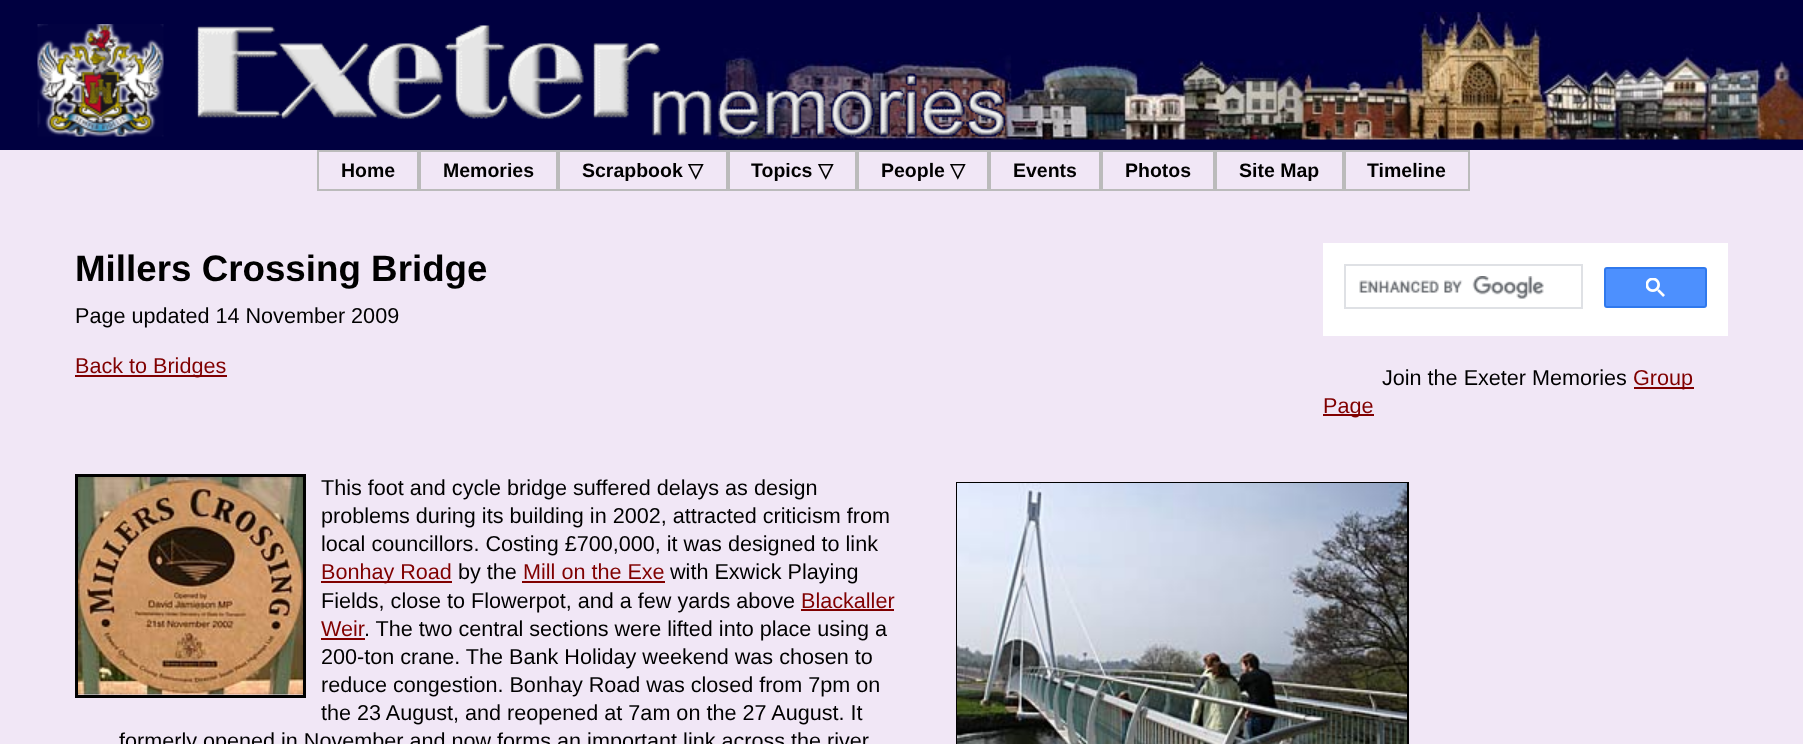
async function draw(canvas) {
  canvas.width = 1803
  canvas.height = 744
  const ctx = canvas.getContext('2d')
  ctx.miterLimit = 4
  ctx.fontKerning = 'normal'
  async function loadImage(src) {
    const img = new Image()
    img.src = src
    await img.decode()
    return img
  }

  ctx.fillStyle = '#f1e7f6'
  ctx.fillRect(0, 0, 1803, 744)
  ctx.fillStyle = '#000040'
  ctx.fillRect(0, 0, 1803, 150)
  ctx.drawImage(await loadImage('image0.png'), 704, 12, 1099, 128)
  ctx.drawImage(await loadImage('image1.png'), 37, 24, 969, 113)
  ctx.strokeStyle = '#bbb'
  ctx.lineWidth = 2
  ctx.strokeRect(318, 151, 100, 39)
  ctx.font = 'bold 19.5px Liberation Sans'
  ctx.fillStyle = '#000'
  ctx.fillText('Home', 341, 177)
  ctx.strokeRect(420, 151, 137, 39)
  ctx.fillText('Memories', 443, 177)
  ctx.strokeRect(559, 151, 168, 39)
  ctx.fillText('Scrapbook', 582, 177)
  ctx.font = 'bold 19.5px DejaVu Sans'
  ctx.fillText('▽', 688, 177)
  ctx.strokeRect(729, 151, 127, 39)
  ctx.font = 'bold 19.5px Liberation Sans'
  ctx.fillText('Topics', 751, 177)
  ctx.font = 'bold 19.5px DejaVu Sans'
  ctx.fillText('▽', 818, 177)
  ctx.strokeRect(858, 151, 130, 39)
  ctx.font = 'bold 19.5px Liberation Sans'
  ctx.fillText('People', 881, 177)
  ctx.font = 'bold 19.5px DejaVu Sans'
  ctx.fillText('▽', 950, 177)
  ctx.strokeRect(990, 151, 110, 39)
  ctx.font = 'bold 19.5px Liberation Sans'
  ctx.fillText('Events', 1013, 177)
  ctx.strokeRect(1102, 151, 112, 39)
  ctx.fillText('Photos', 1125, 177)
  ctx.strokeRect(1216, 151, 127, 39)
  ctx.fillText('Site Map', 1239, 177)
  ctx.strokeRect(1345, 151, 124, 39)
  ctx.fillText('Timeline', 1367, 177)
  ctx.font = 'bold 36.75px Liberation Sans'
  ctx.fillText('Millers Crossing Bridge', 75, 281)
  ctx.font = '21.6px Liberation Sans'
  ctx.fillText('Page updated 14 November 2009', 75, 323)
  ctx.fillStyle = '#800000'
  ctx.fillRect(75, 375, 152, 2)
  ctx.fillText('Back to Bridges', 75, 373)
  ctx.fillStyle = '#fff'
  ctx.fillRect(1323, 243, 405, 93)
  ctx.strokeStyle = '#dfe1e5'
  ctx.strokeRect(1345, 265, 237, 43)
  ctx.drawImage(await loadImage('image2.png'), 1359, 276, 185, 23)
  ctx.fillStyle = '#4d90fe'
  ctx.beginPath()
  ctx.roundRect(1605, 268, 101, 39, 2)
  ctx.fill()
  ctx.strokeStyle = '#3079ed'
  ctx.stroke()
  ctx.drawImage(await loadImage('image3.png'), 1646, 278, 19, 19)
  ctx.fillStyle = '#000'
  ctx.fillText('Join the Exeter Memories', 1382, 385)
  ctx.fillStyle = '#800000'
  ctx.fillRect(1634, 387, 60, 2)
  ctx.fillText('Group', 1633, 385)
  ctx.fillRect(1323, 414, 51, 2)
  ctx.fillText('Page', 1323, 413)
  ctx.strokeStyle = '#000'
  ctx.lineWidth = 3
  ctx.strokeRect(76.5, 475.5, 228, 221)
  ctx.drawImage(await loadImage('image4.png'), 78, 477, 225, 218)
  ctx.fillStyle = '#000'
  ctx.fillText('This foot and cycle bridge suffered delays as design', 321, 495)
  ctx.fillText('problems during its building in 2002, attracted criticism from', 321, 523)
  ctx.fillText('local councillors. Costing £700,000, it was designed to link', 321, 551)
  ctx.fillStyle = '#800000'
  ctx.fillRect(321, 581, 131, 2)
  ctx.fillText('Bonhay Road', 321, 579)
  ctx.fillStyle = '#000'
  ctx.fillText('by the', 458, 579)
  ctx.fillStyle = '#800000'
  ctx.fillText('Mill on the Exe', 523, 579)
  ctx.fillRect(522, 581, 143, 2)
  ctx.fillStyle = '#000'
  ctx.fillText('with Exwick Playing', 670, 579)
  ctx.fillText('Fields, close to Flowerpot, and a few yards above', 321, 608)
  ctx.fillStyle = '#800000'
  ctx.fillText('Blackaller', 801, 608)
  ctx.fillRect(801, 609, 93, 2)
  ctx.fillText('Weir', 321, 636)
  ctx.fillRect(321, 638, 44, 2)
  ctx.fillStyle = '#000'
  ctx.fillText('. The two central sections were lifted into place using a', 364, 636)
  ctx.fillText('200-ton crane. The Bank Holiday weekend was chosen to', 321, 664)
  ctx.fillText('reduce congestion. Bonhay Road was closed from 7pm on', 321, 692)
  ctx.fillText('the 23 August, and reopened at 7am on the 27 August. It', 321, 720)
  ctx.fillText('formerly opened in November and now forms an important link across', 119, 748)
  ctx.fillText('the river.', 791, 748)
  ctx.lineWidth = 2
  ctx.strokeRect(957, 483, 451, 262)
  ctx.drawImage(await loadImage('image5.png'), 957, 483, 450, 261)
}

draw(document.querySelector('canvas'))
